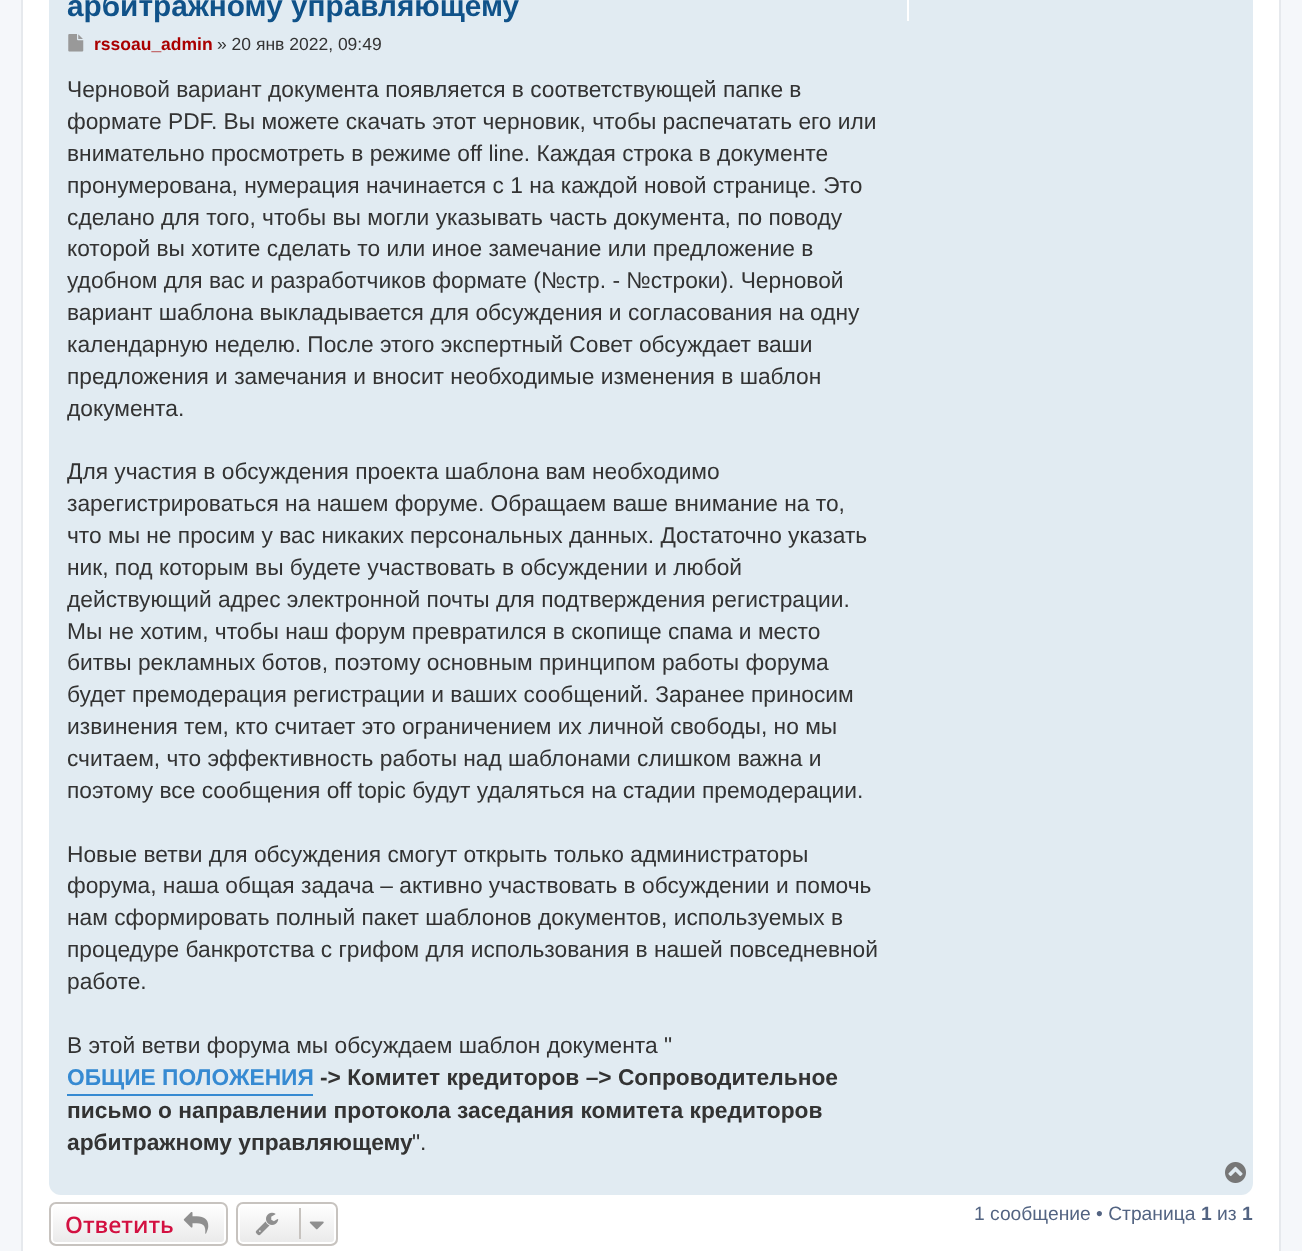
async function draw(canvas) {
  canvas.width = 1302
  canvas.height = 1251
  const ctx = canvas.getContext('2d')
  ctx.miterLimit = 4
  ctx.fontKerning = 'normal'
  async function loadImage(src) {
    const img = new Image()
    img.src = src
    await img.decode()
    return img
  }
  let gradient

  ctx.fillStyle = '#f5f7fa'
  ctx.fillRect(0, 0, 1302, 1251)
  ctx.fillStyle = '#fff'
  ctx.beginPath()
  ctx.rect(22, -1, 1258, 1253)
  ctx.fill()
  ctx.strokeStyle = '#e6e9ed'
  ctx.lineWidth = 2
  ctx.stroke()
  ctx.fillStyle = '#e1ebf2'
  ctx.beginPath()
  ctx.roundRect(49, -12, 1204, 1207, 12)
  ctx.fill()
  ctx.font = 'bold 29.75px Liberation Sans'
  ctx.fillStyle = '#105289'
  ctx.fillText('арбитражному управляющему', 67, 16)
  ctx.drawImage(await loadImage('image0.png'), 68, 34, 16, 18)
  ctx.font = 'bold 17.5px Liberation Sans'
  ctx.fillStyle = '#a00'
  ctx.fillText('rssoau_admin', 94, 50)
  ctx.font = '17.5px Liberation Sans'
  ctx.fillStyle = '#333'
  ctx.fillText('» 20 янв 2022, 09:49', 217, 50)
  ctx.font = '22.75px Liberation Sans'
  ctx.fillText('Черновой вариант документа появляется в соответствующей папке в', 67, 97)
  ctx.fillText('формате PDF. Вы можете скачать этот черновик, чтобы распечатать его или', 67, 129)
  ctx.fillText('внимательно просмотреть в режиме off line. Каждая строка в документе', 67, 161)
  ctx.fillText('пронумерована, нумерация начинается с 1 на каждой новой странице. Это', 67, 193)
  ctx.fillText('сделано для того, чтобы вы могли указывать часть документа, по поводу', 67, 225)
  ctx.fillText('которой вы хотите сделать то или иное замечание или предложение в', 67, 256)
  ctx.fillText('удобном для вас и разработчиков формате (№стр. - №строки). Черновой', 67, 288)
  ctx.fillText('вариант шаблона выкладывается для обсуждения и согласования на одну', 67, 320)
  ctx.fillText('календарную неделю. После этого экспертный Совет обсуждает ваши', 67, 352)
  ctx.fillText('предложения и замечания и вносит необходимые изменения в шаблон', 67, 384)
  ctx.save()
  ctx.beginPath()
  ctx.rect(67, 74, 819, 1086)
  ctx.clip()
  ctx.fillText('документа.', 67, 416)
  ctx.fillText('Для участия в обсуждения проекта шаблона вам необходимо', 67, 479)
  ctx.restore()
  ctx.fillText('зарегистрироваться на нашем форуме. Обращаем ваше внимание на то,', 67, 511)
  ctx.fillText('что мы не просим у вас никаких персональных данных. Достаточно указать', 67, 543)
  ctx.fillText('ник, под которым вы будете участвовать в обсуждении и любой', 67, 575)
  ctx.save()
  ctx.beginPath()
  ctx.rect(67, 74, 819, 1086)
  ctx.clip()
  ctx.fillText('действующий адрес электронной почты для подтверждения регистрации.', 67, 607)
  ctx.restore()
  ctx.fillText('Мы не хотим, чтобы наш форум превратился в скопище спама и место', 67, 639)
  ctx.fillText('битвы рекламных ботов, поэтому основным принципом работы форума', 67, 670)
  ctx.fillText('будет премодерация регистрации и ваших сообщений. Заранее приносим', 67, 702)
  ctx.fillText('извинения тем, кто считает это ограничением их личной свободы, но мы', 67, 734)
  ctx.fillText('считаем, что эффективность работы над шаблонами слишком важна и', 67, 766)
  ctx.fillText('поэтому все сообщения off topic будут удаляться на стадии премодерации.', 67, 798)
  ctx.fillText('Новые ветви для обсуждения смогут открыть только администраторы', 67, 862)
  ctx.fillText('форума, наша общая задача – активно участвовать в обсуждении и помочь', 67, 893)
  ctx.fillText('нам сформировать полный пакет шаблонов документов, используемых в', 67, 925)
  ctx.fillText('процедуре банкротства с грифом для использования в нашей повседневной', 67, 957)
  ctx.fillText('работе.', 67, 989)
  ctx.fillText('В этой ветви форума мы обсуждаем шаблон документа "', 67, 1053)
  ctx.fillStyle = '#368ad2'
  ctx.fillRect(67, 1094, 246, 2)
  ctx.font = 'bold 22.75px Liberation Sans'
  ctx.fillText('ОБЩИЕ ПОЛОЖЕНИЯ', 67, 1085)
  ctx.fillStyle = '#333'
  ctx.fillText('-> Комитет кредиторов –> Сопроводительное', 320, 1085)
  ctx.fillText('письмо о направлении протокола заседания комитета кредиторов', 67, 1118)
  ctx.fillText('арбитражному управляющему', 67, 1150)
  ctx.font = '22.75px Liberation Sans'
  ctx.fillText('".', 412, 1150)
  ctx.fillStyle = '#fff'
  ctx.fillRect(907, 0, 2, 21)
  ctx.drawImage(await loadImage('image1.png'), 1225, 1162, 21, 21)
  ctx.save()
  ctx.beginPath()
  ctx.roundRect(49, 1202, 179, 44, 7)
  ctx.clip()
  gradient = ctx.createLinearGradient(138, 1204, 138, 1244)
  gradient.addColorStop(0, '#fff')
  gradient.addColorStop(1, '#e9e9e9')
  ctx.fillStyle = gradient
  ctx.fillRect(49, 1204, 179, 40)
  ctx.restore()
  ctx.beginPath()
  ctx.roundRect(52, 1205, 173, 38, 4)
  ctx.strokeStyle = '#fff'
  ctx.stroke()
  ctx.beginPath()
  ctx.roundRect(50, 1203, 177, 42, 6)
  ctx.strokeStyle = '#c7c3bf'
  ctx.stroke()
  ctx.font = '600 22.75px Open Sans'
  ctx.fillStyle = '#d31141'
  ctx.fillText('Ответить', 65, 1233)
  ctx.drawImage(await loadImage('image2.png'), 183, 1212, 26, 22)
  ctx.save()
  ctx.beginPath()
  ctx.roundRect(236, 1202, 102, 44, 7)
  ctx.clip()
  gradient = ctx.createLinearGradient(287, 1204, 287, 1244)
  gradient.addColorStop(0, '#fff')
  gradient.addColorStop(1, '#e9e9e9')
  ctx.fillStyle = gradient
  ctx.fillRect(236, 1204, 102, 40)
  ctx.restore()
  ctx.beginPath()
  ctx.roundRect(239, 1205, 96, 38, 4)
  ctx.strokeStyle = '#fff'
  ctx.stroke()
  ctx.beginPath()
  ctx.roundRect(237, 1203, 100, 42, 6)
  ctx.strokeStyle = '#c7c3bf'
  ctx.stroke()
  ctx.drawImage(await loadImage('image3.png'), 255, 1212, 24, 24)
  ctx.fillStyle = '#c7c3bf'
  ctx.fillRect(299, 1208, 2, 31)
  ctx.drawImage(await loadImage('image4.png'), 309, 1221, 15, 9)
  ctx.font = '19.25px Liberation Sans'
  ctx.fillStyle = '#536482'
  ctx.fillText('1 сообщение • Страница', 974, 1220)
  ctx.font = 'bold 19.25px Liberation Sans'
  ctx.fillText('1', 1201, 1220)
  ctx.font = '19.25px Liberation Sans'
  ctx.fillText('из', 1217, 1220)
  ctx.font = 'bold 19.25px Liberation Sans'
  ctx.fillText('1', 1242, 1220)
}

draw(document.querySelector('canvas'))
